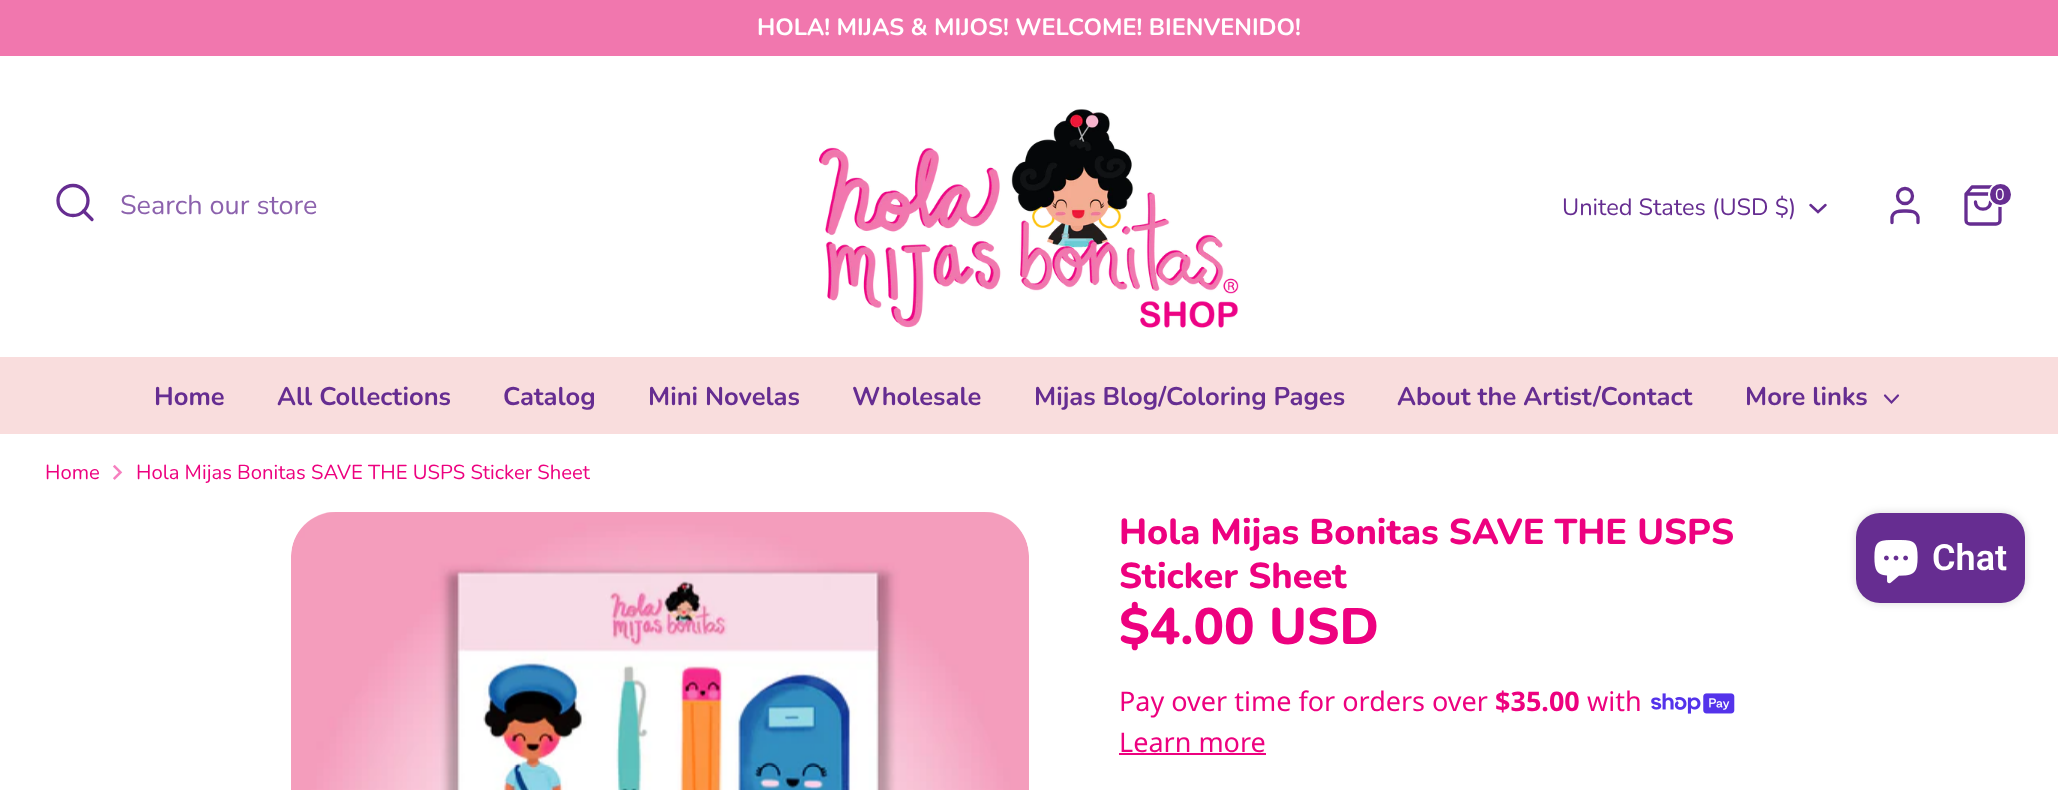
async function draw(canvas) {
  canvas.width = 2058
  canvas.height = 790
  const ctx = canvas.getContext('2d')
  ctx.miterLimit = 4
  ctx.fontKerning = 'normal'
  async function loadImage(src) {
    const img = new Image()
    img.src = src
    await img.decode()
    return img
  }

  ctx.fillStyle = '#fff'
  ctx.fillRect(0, 0, 2058, 790)
  ctx.fillStyle = '#f177ae'
  ctx.fillRect(0, 0, 2058, 56)
  ctx.font = 'bold 23.6px Nunito'
  ctx.fillStyle = '#fff'
  ctx.fillText('HOLA! MIJAS & MIJOS! WELCOME! BIENVENIDO!', 757, 35)
  ctx.beginPath()
  ctx.arc(73, 200.5, 15, 0, 2 * Math.PI)
  ctx.strokeStyle = '#662d91'
  ctx.lineWidth = 3.3
  ctx.stroke()
  ctx.beginPath()
  ctx.moveTo(92, 219.5)
  ctx.lineTo(83.5, 211)
  ctx.lineCap = 'round'
  ctx.lineJoin = 'round'
  ctx.stroke()
  ctx.font = '27px Nunito'
  ctx.fillStyle = '#8c62ad'
  ctx.fillText('Search our store', 120, 214)
  ctx.drawImage(await loadImage('image0.png'), 819, 109, 420, 219)
  ctx.font = '23.6px Nunito'
  ctx.fillStyle = '#662d91'
  ctx.fillText('United States (USD $)', 1562, 215)
  ctx.beginPath()
  ctx.moveTo(1810.5, 205)
  ctx.lineTo(1818, 212)
  ctx.lineTo(1825.5, 205)
  ctx.lineWidth = 2.5
  ctx.lineJoin = 'miter'
  ctx.stroke()
  ctx.beginPath()
  ctx.moveTo(1918, 222.5)
  ctx.lineTo(1918, 217)
  ctx.bezierCurveTo(1916.5, 210.5, 1910, 211, 1905, 211)
  ctx.bezierCurveTo(1900, 211, 1893.5, 210.5, 1892, 217)
  ctx.lineTo(1892, 222.5)
  ctx.lineWidth = 3.3
  ctx.lineJoin = 'round'
  ctx.stroke()
  ctx.beginPath()
  ctx.arc(1905, 196, 7.5, 0, 2 * Math.PI)
  ctx.stroke()
  ctx.beginPath()
  ctx.moveTo(1972, 187)
  ctx.lineTo(1966, 194)
  ctx.lineTo(1966, 220.5)
  ctx.bezierCurveTo(1966, 222.5, 1968, 224, 1970, 224)
  ctx.lineTo(1996, 224)
  ctx.bezierCurveTo(1998, 224, 2000, 222.5, 2000, 220.5)
  ctx.lineTo(2000, 194)
  ctx.lineTo(1994, 187)
  ctx.closePath()
  ctx.moveTo(1966, 194)
  ctx.lineTo(2000, 194)
  ctx.moveTo(1990.5, 202)
  ctx.bezierCurveTo(1990.5, 211.5, 1975.5, 211.5, 1975.5, 202)
  ctx.stroke()
  ctx.beginPath()
  ctx.arc(2000.5, 194.5, 11.5, 0, 2 * Math.PI)
  ctx.fill()
  ctx.strokeStyle = '#fff'
  ctx.lineWidth = 2
  ctx.stroke()
  ctx.font = '16px Nunito'
  ctx.fillStyle = '#fff'
  ctx.fillText('0', 1995, 200)
  ctx.fillStyle = '#f9dddd'
  ctx.fillRect(0, 357, 2058, 77)
  ctx.font = 'bold 25.5px Nunito'
  ctx.fillStyle = '#662d91'
  ctx.fillText('Home', 154, 405)
  ctx.fillText('All Collections', 277, 405)
  ctx.fillText('Catalog', 503, 405)
  ctx.fillText('Mini Novelas', 648, 405)
  ctx.fillText('Wholesale', 852, 405)
  ctx.fillText('Mijas Blog/Coloring Pages', 1034, 405)
  ctx.fillText('About the Artist/Contact', 1397, 405)
  ctx.fillText('More links', 1745, 405)
  ctx.beginPath()
  ctx.moveTo(1885, 395.5)
  ctx.lineTo(1891.5, 402.5)
  ctx.lineTo(1898, 395.5)
  ctx.strokeStyle = '#662d91'
  ctx.lineWidth = 2.2
  ctx.lineJoin = 'miter'
  ctx.stroke()
  ctx.font = '20.25px Nunito'
  ctx.fillStyle = '#ed017f'
  ctx.fillText('Home', 45, 479)
  ctx.drawImage(await loadImage('image1.png'), 113, 464, 10, 16)
  ctx.fillText('Hola Mijas Bonitas SAVE THE USPS Sticker Sheet', 136, 479)
  ctx.drawImage(await loadImage('image2.png'), 291, 512, 738, 278)
  ctx.font = '800 36px Nunito'
  ctx.fillText('Hola Mijas Bonitas SAVE THE USPS', 1119, 544)
  ctx.fillText('Sticker Sheet', 1119, 588)
  ctx.font = '800 51px Nunito'
  ctx.fillText('$4.00 USD', 1119, 644)
  ctx.font = '27px Noto Sans'
  ctx.fillText('Pay over time for orders over', 1119, 711)
  ctx.font = 'bold 27px Noto Sans'
  ctx.fillText('$35.00', 1495, 711)
  ctx.font = '27px Noto Sans'
  ctx.fillText('with', 1587, 711)
  ctx.drawImage(await loadImage('image3.png'), 1651, 693, 84, 21)
  ctx.fillText('Learn more', 1119, 752)
  ctx.fillRect(1119, 753, 147, 2)
  ctx.fillStyle = '#00000026'
  ctx.filter = 'blur(4px)'
  ctx.beginPath()
  ctx.roundRect(1856, 513, 169, 90, 24)
  ctx.fill()
  ctx.filter = 'none'
  ctx.fillStyle = '#662d91'
  ctx.beginPath()
  ctx.roundRect(1856, 513, 169, 90, 24)
  ctx.fill()
  ctx.drawImage(await loadImage('image4.png'), 1874, 540, 44, 44)
  ctx.font = '600 36px Roboto'
  ctx.fillStyle = '#fff'
  ctx.fillText('Chat', 1932, 570)
}

draw(document.querySelector('canvas'))
